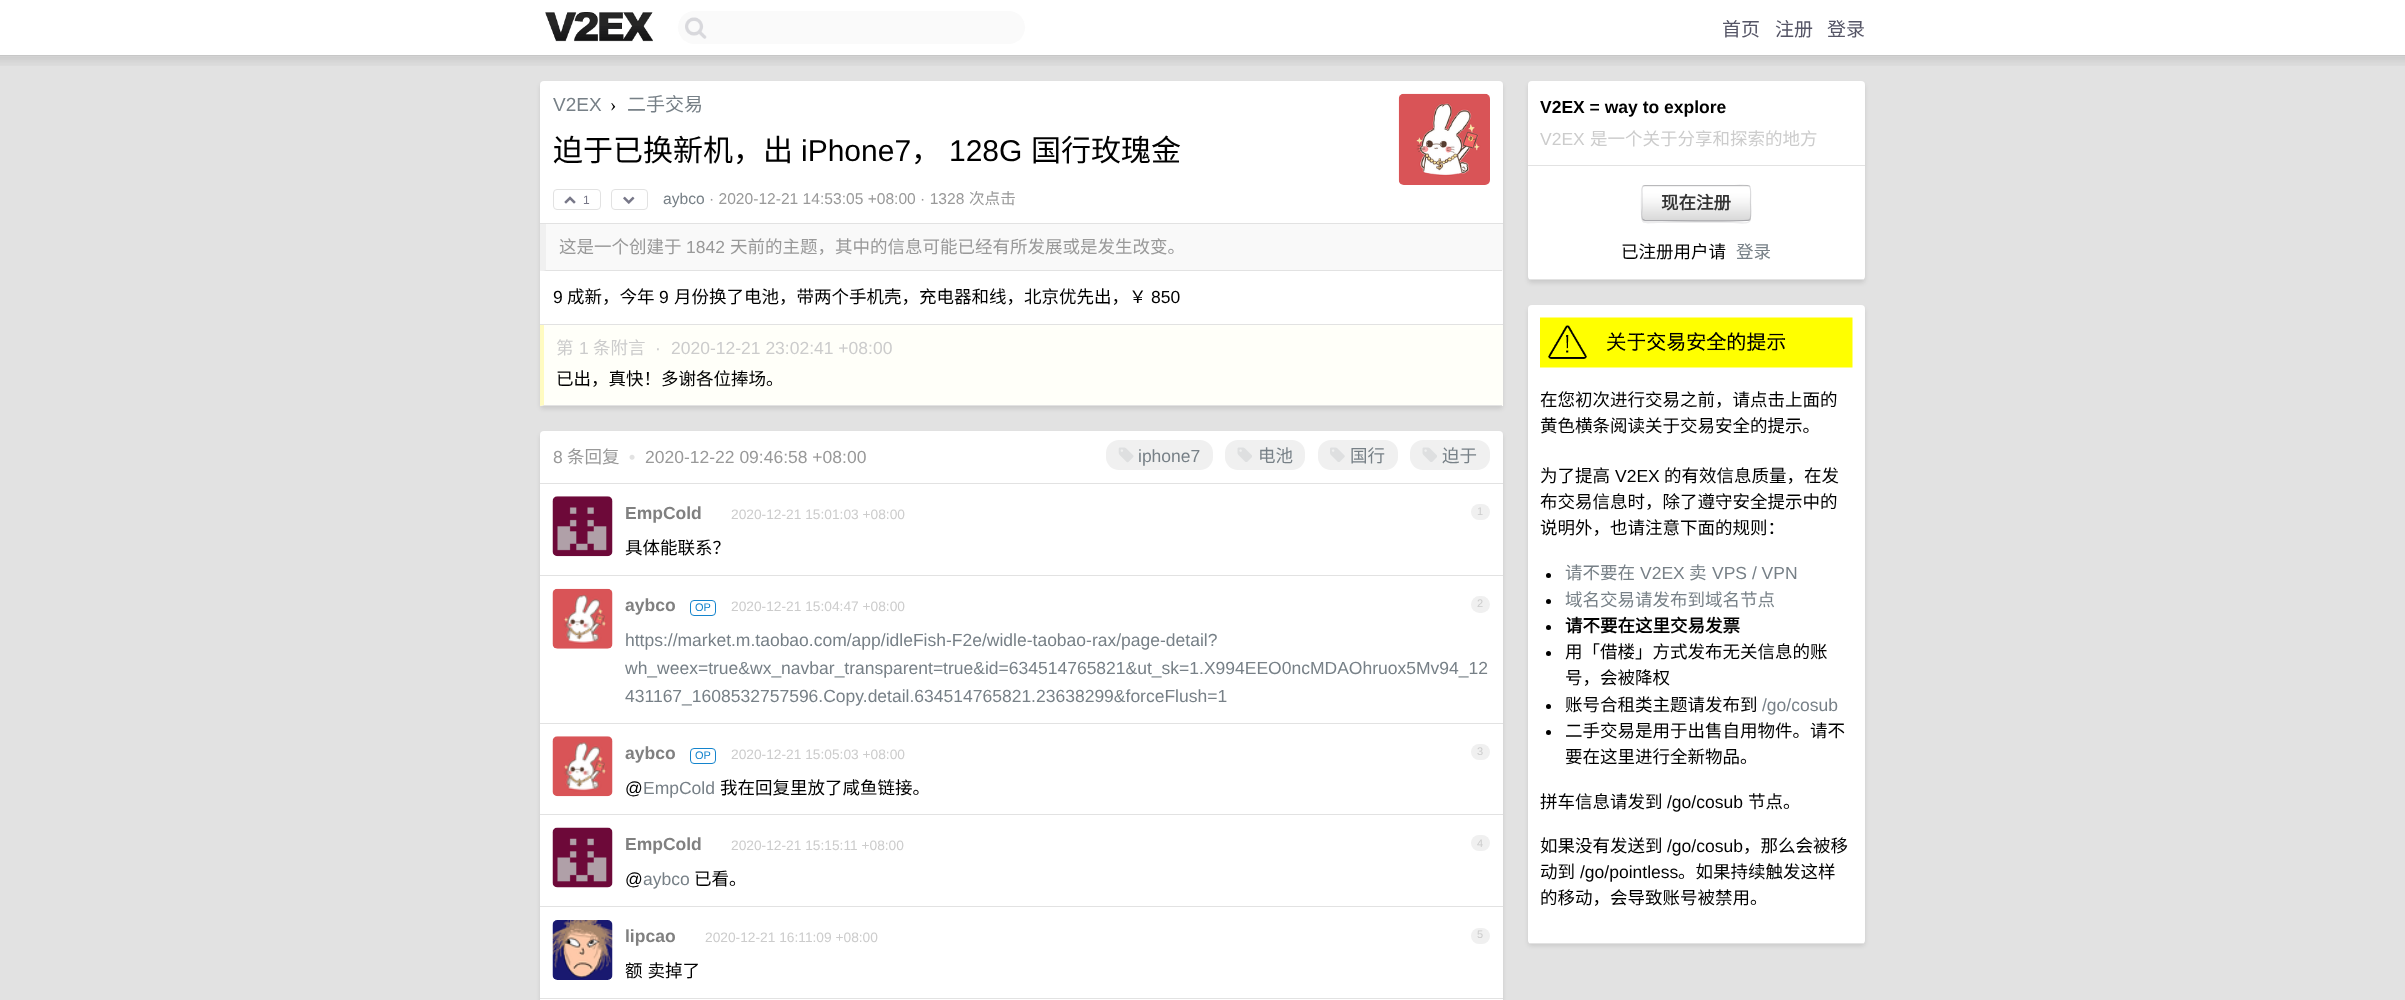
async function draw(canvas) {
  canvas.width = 2405
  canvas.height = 1000
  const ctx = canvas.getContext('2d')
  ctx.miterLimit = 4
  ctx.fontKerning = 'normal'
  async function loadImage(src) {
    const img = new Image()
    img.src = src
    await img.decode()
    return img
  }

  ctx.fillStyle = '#fff'
  ctx.fillRect(0, 0, 2405, 1000)
  ctx.fillStyle = '#c7c7c7'
  ctx.fillRect(0, 55, 2405, 1)
  ctx.drawImage(await loadImage('image0.png'), 545, 12, 108, 30)
  ctx.fillStyle = '#fafafa'
  ctx.beginPath()
  ctx.roundRect(678, 11, 347, 33, 16.5)
  ctx.fill()
  ctx.drawImage(await loadImage('image1.png'), 685, 17, 22, 22)
  ctx.font = '19px Noto Sans CJK SC'
  ctx.fillStyle = '#556'
  ctx.fillText('首页', 1722, 36)
  ctx.fillText('注册', 1775, 36)
  ctx.fillText('登录', 1827, 36)
  ctx.fillStyle = '#e2e2e2'
  ctx.fillRect(0, 56, 2405, 944)
  ctx.drawImage(await loadImage('image2.png'), 0, 56, 2405, 10)
  ctx.fillStyle = '#0000001a'
  ctx.filter = 'blur(2px)'
  ctx.beginPath()
  ctx.roundRect(540, 84, 963, 325, 4)
  ctx.fill()
  ctx.filter = 'none'
  ctx.fillStyle = '#fff'
  ctx.beginPath()
  ctx.roundRect(540, 81, 963, 325, 4)
  ctx.fill()
  ctx.fillStyle = '#e2e2e2'
  ctx.fillRect(540, 223, 963, 1)
  ctx.font = '19px Liberation Sans'
  ctx.fillStyle = '#778087'
  ctx.fillText('V2EX', 553, 111)
  ctx.font = '19px Liberation Serif'
  ctx.fillStyle = '#000'
  ctx.fillText('›', 610, 111)
  ctx.font = '19px Noto Sans CJK SC'
  ctx.fillStyle = '#778087'
  ctx.fillText('二手交易', 627, 111)
  ctx.drawImage(await loadImage('image3.png'), 1398, 93, 92, 92)
  ctx.font = '30px Noto Sans CJK SC'
  ctx.fillStyle = '#000'
  ctx.fillText('迫于已换新机，出', 553, 161)
  ctx.font = '30px Liberation Sans'
  ctx.fillText('iPhone7', 801, 161)
  ctx.font = '30px Noto Sans CJK SC'
  ctx.fillText('，', 911, 161)
  ctx.font = '30px Liberation Sans'
  ctx.fillText('128G', 949, 161)
  ctx.font = '30px Noto Sans CJK SC'
  ctx.fillText('国行玫瑰金', 1031, 161)
  ctx.beginPath()
  ctx.roundRect(553.5, 189.5, 47, 20, 3.5)
  ctx.strokeStyle = '#e2e2e2'
  ctx.stroke()
  ctx.drawImage(await loadImage('image4.png'), 564, 196, 12, 8)
  ctx.font = '12px Liberation Sans'
  ctx.fillStyle = '#778'
  ctx.fillText('1', 583, 204)
  ctx.beginPath()
  ctx.roundRect(611.5, 189.5, 36, 20, 3.5)
  ctx.stroke()
  ctx.drawImage(await loadImage('image5.png'), 623, 196, 12, 8)
  ctx.font = '15.6px Liberation Sans'
  ctx.fillStyle = '#778087'
  ctx.fillText('aybco', 663, 204)
  ctx.fillStyle = '#999'
  ctx.fillText('· 2020-12-21 14:53:05 +08:00 · 1328', 709, 204)
  ctx.font = '15.6px Noto Sans CJK SC'
  ctx.fillText('次点击', 969, 204)
  ctx.fillStyle = '#f9f9f9'
  ctx.fillRect(540, 224, 963, 47)
  ctx.fillStyle = '#e2e2e2'
  ctx.beginPath()
  ctx.moveTo(1502, 271)
  ctx.lineTo(540, 271)
  ctx.lineTo(546, 270)
  ctx.lineTo(1502, 270)
  ctx.closePath()
  ctx.fill()
  ctx.fillStyle = '#f0f0f0'
  ctx.beginPath()
  ctx.moveTo(540, 271)
  ctx.lineTo(540, 224)
  ctx.lineTo(546, 224)
  ctx.lineTo(546, 270)
  ctx.closePath()
  ctx.fill()
  ctx.font = '17.5px Noto Sans CJK SC'
  ctx.fillStyle = '#999'
  ctx.fillText('这是一个创建于', 559, 253)
  ctx.font = '17.5px Liberation Sans'
  ctx.fillText('1842', 686, 253)
  ctx.font = '17.5px Noto Sans CJK SC'
  ctx.fillText('天前的主题，其中的信息可能已经有所发展或是发生改变。', 730, 253)
  ctx.fillStyle = '#e2e2e2'
  ctx.fillRect(540, 324, 963, 1)
  ctx.font = '17.5px Liberation Sans'
  ctx.fillStyle = '#000'
  ctx.fillText('9', 553, 303)
  ctx.font = '17.5px Noto Sans CJK SC'
  ctx.fillText('成新，今年', 567, 303)
  ctx.font = '17.5px Liberation Sans'
  ctx.fillText('9', 659, 303)
  ctx.font = '17.5px Noto Sans CJK SC'
  ctx.fillText('月份换了电池，带两个手机壳，充电器和线，北京优先出，￥', 674, 303)
  ctx.font = '17.5px Liberation Sans'
  ctx.fillText('850', 1151, 303)
  ctx.fillStyle = '#fffff9'
  ctx.fillRect(540, 325, 963, 81)
  ctx.fillStyle = '#e2e2e2'
  ctx.beginPath()
  ctx.moveTo(1502, 406)
  ctx.lineTo(540, 406)
  ctx.lineTo(544, 405)
  ctx.lineTo(1502, 405)
  ctx.closePath()
  ctx.fill()
  ctx.fillStyle = '#fffbc1'
  ctx.beginPath()
  ctx.moveTo(540, 406)
  ctx.lineTo(540, 325)
  ctx.lineTo(544, 325)
  ctx.lineTo(544, 405)
  ctx.closePath()
  ctx.fill()
  ctx.font = '17.5px Noto Sans CJK SC'
  ctx.fillStyle = '#ccc'
  ctx.fillText('第', 556, 354)
  ctx.font = '17.5px Liberation Sans'
  ctx.fillText('1', 579, 354)
  ctx.font = '17.5px Noto Sans CJK SC'
  ctx.fillText('条附言', 593, 354)
  ctx.font = '17.5px Liberation Sans'
  ctx.fillText('·', 655, 354)
  ctx.fillText('2020-12-21 23:02:41 +08:00', 671, 354)
  ctx.font = '17.5px Noto Sans CJK SC'
  ctx.fillStyle = '#000'
  ctx.fillText('已出，真快！多谢各位捧场。', 556, 385)
  ctx.fillStyle = '#0000001a'
  ctx.filter = 'blur(2px)'
  ctx.beginPath()
  ctx.roundRect(540, 434, 963, 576, 4)
  ctx.fill()
  ctx.filter = 'none'
  ctx.fillStyle = '#fff'
  ctx.beginPath()
  ctx.roundRect(540, 431, 963, 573, 4)
  ctx.fill()
  ctx.fillStyle = '#e2e2e2'
  ctx.fillRect(540, 483, 963, 1)
  ctx.font = '17.5px Liberation Sans'
  ctx.fillStyle = '#999'
  ctx.fillText('8', 553, 463)
  ctx.font = '17.5px Noto Sans CJK SC'
  ctx.fillText('条回复', 567, 463)
  ctx.font = 'bold 17.5px Liberation Sans'
  ctx.fillStyle = '#e2e2e2'
  ctx.fillText('•', 629, 463)
  ctx.font = '17.5px Liberation Sans'
  ctx.fillStyle = '#999'
  ctx.fillText('2020-12-22 09:46:58 +08:00', 645, 463)
  ctx.fillStyle = '#f0f0f0'
  ctx.beginPath()
  ctx.roundRect(1106, 440, 107, 30, 13)
  ctx.fill()
  ctx.drawImage(await loadImage('image6.png'), 1118, 447, 16, 16)
  ctx.fillStyle = '#778087'
  ctx.fillText('iphone7', 1138, 462)
  ctx.fillStyle = '#f0f0f0'
  ctx.beginPath()
  ctx.roundRect(1225, 440, 80, 30, 13)
  ctx.fill()
  ctx.drawImage(await loadImage('image7.png'), 1237, 447, 15, 15)
  ctx.font = '17.5px Noto Sans CJK SC'
  ctx.fillStyle = '#778087'
  ctx.fillText('电池', 1258, 462)
  ctx.fillStyle = '#f0f0f0'
  ctx.beginPath()
  ctx.roundRect(1318, 440, 80, 30, 13)
  ctx.fill()
  ctx.drawImage(await loadImage('image8.png'), 1330, 447, 15, 15)
  ctx.fillStyle = '#778087'
  ctx.fillText('国行', 1350, 462)
  ctx.fillStyle = '#f0f0f0'
  ctx.beginPath()
  ctx.roundRect(1410, 440, 80, 30, 13)
  ctx.fill()
  ctx.drawImage(await loadImage('image7.png'), 1422, 447, 15, 15)
  ctx.fillStyle = '#778087'
  ctx.fillText('迫于', 1442, 462)
  ctx.fillStyle = '#e2e2e2'
  ctx.fillRect(540, 575, 963, 1)
  ctx.drawImage(await loadImage('image9.png'), 552, 496, 61, 61)
  ctx.font = 'bold 17.5px Liberation Sans'
  ctx.fillStyle = '#808080'
  ctx.fillText('EmpCold', 625, 519)
  ctx.font = '13.75px Liberation Sans'
  ctx.fillStyle = '#ccc'
  ctx.fillText('2020-12-21 15:01:03 +08:00', 731, 519)
  ctx.fillStyle = '#f0f0f0'
  ctx.beginPath()
  ctx.roundRect(1471, 504, 19, 16, 8)
  ctx.fill()
  ctx.font = '11px Liberation Sans'
  ctx.fillStyle = '#ccc'
  ctx.fillText('1', 1477, 515)
  ctx.font = '17.5px Noto Sans CJK SC'
  ctx.fillStyle = '#000'
  ctx.fillText('具体能联系？', 625, 554)
  ctx.fillStyle = '#e2e2e2'
  ctx.fillRect(540, 723, 963, 1)
  ctx.drawImage(await loadImage('image10.png'), 552, 588, 61, 61)
  ctx.font = 'bold 17.5px Liberation Sans'
  ctx.fillStyle = '#808080'
  ctx.fillText('aybco', 625, 611)
  ctx.beginPath()
  ctx.roundRect(690.5, 600.5, 25, 15, 3.5)
  ctx.strokeStyle = '#1484cd'
  ctx.stroke()
  ctx.font = '11px Liberation Sans'
  ctx.fillStyle = '#1484cd'
  ctx.fillText('OP', 695, 611)
  ctx.font = '13.75px Liberation Sans'
  ctx.fillStyle = '#ccc'
  ctx.fillText('2020-12-21 15:04:47 +08:00', 731, 611)
  ctx.fillStyle = '#f0f0f0'
  ctx.beginPath()
  ctx.roundRect(1471, 596, 19, 17, 8.5)
  ctx.fill()
  ctx.font = '11px Liberation Sans'
  ctx.fillStyle = '#ccc'
  ctx.fillText('2', 1477, 607)
  ctx.font = '17.5px Liberation Sans'
  ctx.fillStyle = '#778087'
  ctx.fillText('https://market.m.taobao.com/app/idleFish-F2e/widle-taobao-rax/page-detail?', 625, 646)
  ctx.fillText('wh_weex=true&wx_navbar_transparent=true&id=634514765821&ut_sk=1.X994EEO0ncMDAOhruox5Mv94_12', 625, 674)
  ctx.fillText('431167_1608532757596.Copy.detail.634514765821.23638299&forceFlush=1', 625, 702)
  ctx.fillStyle = '#e2e2e2'
  ctx.fillRect(540, 814, 963, 1)
  ctx.drawImage(await loadImage('image11.png'), 552, 736, 61, 61)
  ctx.font = 'bold 17.5px Liberation Sans'
  ctx.fillStyle = '#808080'
  ctx.fillText('aybco', 625, 759)
  ctx.beginPath()
  ctx.roundRect(690.5, 748.5, 25, 15, 3.5)
  ctx.stroke()
  ctx.font = '11px Liberation Sans'
  ctx.fillStyle = '#1484cd'
  ctx.fillText('OP', 695, 759)
  ctx.font = '13.75px Liberation Sans'
  ctx.fillStyle = '#ccc'
  ctx.fillText('2020-12-21 15:05:03 +08:00', 731, 759)
  ctx.fillStyle = '#f0f0f0'
  ctx.beginPath()
  ctx.roundRect(1471, 744, 19, 16, 8)
  ctx.fill()
  ctx.font = '11px Liberation Sans'
  ctx.fillStyle = '#ccc'
  ctx.fillText('3', 1477, 755)
  ctx.font = '17.5px Liberation Sans'
  ctx.fillStyle = '#000'
  ctx.fillText('@', 625, 794)
  ctx.fillStyle = '#778087'
  ctx.fillText('EmpCold', 643, 794)
  ctx.font = '17.5px Noto Sans CJK SC'
  ctx.fillStyle = '#000'
  ctx.fillText('我在回复里放了咸鱼链接。', 720, 794)
  ctx.fillStyle = '#e2e2e2'
  ctx.fillRect(540, 906, 963, 1)
  ctx.drawImage(await loadImage('image12.png'), 552, 827, 61, 61)
  ctx.font = 'bold 17.5px Liberation Sans'
  ctx.fillStyle = '#808080'
  ctx.fillText('EmpCold', 625, 850)
  ctx.font = '13.75px Liberation Sans'
  ctx.fillStyle = '#ccc'
  ctx.fillText('2020-12-21 15:15:11 +08:00', 731, 850)
  ctx.fillStyle = '#f0f0f0'
  ctx.beginPath()
  ctx.roundRect(1471, 835, 19, 16, 8)
  ctx.fill()
  ctx.font = '11px Liberation Sans'
  ctx.fillStyle = '#ccc'
  ctx.fillText('4', 1477, 847)
  ctx.font = '17.5px Liberation Sans'
  ctx.fillStyle = '#000'
  ctx.fillText('@', 625, 885)
  ctx.fillStyle = '#778087'
  ctx.fillText('aybco', 643, 885)
  ctx.font = '17.5px Noto Sans CJK SC'
  ctx.fillStyle = '#000'
  ctx.fillText('已看。', 694, 885)
  ctx.fillStyle = '#e2e2e2'
  ctx.fillRect(540, 998, 963, 1)
  ctx.drawImage(await loadImage('image13.png'), 552, 920, 61, 60)
  ctx.font = 'bold 17.5px Liberation Sans'
  ctx.fillStyle = '#808080'
  ctx.fillText('lipcao', 625, 942)
  ctx.font = '13.75px Liberation Sans'
  ctx.fillStyle = '#ccc'
  ctx.fillText('2020-12-21 16:11:09 +08:00', 705, 942)
  ctx.fillStyle = '#f0f0f0'
  ctx.beginPath()
  ctx.roundRect(1471, 928, 19, 16, 8)
  ctx.fill()
  ctx.font = '11px Liberation Sans'
  ctx.fillStyle = '#ccc'
  ctx.fillText('5', 1477, 938)
  ctx.wordSpacing = '1px'
  ctx.font = '17.5px Noto Sans CJK SC'
  ctx.fillStyle = '#000'
  ctx.fillText('额 卖掉了', 625, 977)
  ctx.fillStyle = '#0000001a'
  ctx.filter = 'blur(2px)'
  ctx.beginPath()
  ctx.roundRect(1528, 84, 337, 199, 4)
  ctx.fill()
  ctx.filter = 'none'
  ctx.fillStyle = '#fff'
  ctx.beginPath()
  ctx.roundRect(1528, 81, 337, 199, 4)
  ctx.fill()
  ctx.fillStyle = '#e2e2e2'
  ctx.fillRect(1530, 279, 334, 1)
  ctx.fillRect(1528, 165, 337, 1)
  ctx.wordSpacing = '0px'
  ctx.font = 'bold 17.5px Liberation Sans'
  ctx.fillStyle = '#000'
  ctx.fillText('V2EX = way to explore', 1540, 113)
  ctx.font = '17.5px Liberation Sans'
  ctx.fillStyle = '#ccc'
  ctx.fillText('V2EX', 1540, 145)
  ctx.font = '17.5px Noto Sans CJK SC'
  ctx.fillText('是一个关于分享和探索的地方', 1590, 145)
  ctx.fillStyle = '#ececed'
  ctx.beginPath()
  ctx.moveTo(1641, 189)
  ctx.lineTo(1641, 209)
  ctx.bezierCurveTo(1641, 227, 1641, 223, 1662, 223)
  ctx.lineTo(1730, 223)
  ctx.bezierCurveTo(1738, 223, 1751, 226, 1751, 219)
  ctx.lineTo(1749, 221)
  ctx.bezierCurveTo(1744, 224, 1737, 221, 1730, 221)
  ctx.lineTo(1645, 221)
  ctx.lineTo(1642, 220)
  ctx.bezierCurveTo(1640, 218, 1641, 193, 1641, 189)
  ctx.closePath()
  ctx.fill()
  ctx.fillStyle = '#fff'
  ctx.beginPath()
  ctx.roundRect(1641, 185, 110, 36, 4)
  ctx.fill()
  ctx.drawImage(await loadImage('image14.png'), 1641, 185, 110, 36)
  ctx.beginPath()
  ctx.moveTo(1749.5, 219.5)
  ctx.lineTo(1749, 220)
  ctx.bezierCurveTo(1747, 221.5, 1671.5, 220.5, 1662, 220.5)
  ctx.lineTo(1645, 220.5)
  ctx.lineTo(1643, 219.5)
  ctx.strokeStyle = '#a8a8ac'
  ctx.lineWidth = 1.2
  ctx.stroke()
  ctx.beginPath()
  ctx.moveTo(1643, 219.5)
  ctx.bezierCurveTo(1640.5, 217.5, 1642, 210.5, 1642, 208)
  ctx.lineTo(1642, 193.5)
  ctx.bezierCurveTo(1642, 191, 1641, 185.5, 1645, 185.5)
  ctx.lineTo(1730.5, 185.5)
  ctx.bezierCurveTo(1754, 185.5, 1750.5, 181.5, 1750.5, 203)
  ctx.bezierCurveTo(1750.5, 206, 1752, 217.5, 1749.5, 219.5)
  ctx.strokeStyle = '#50505a33'
  ctx.stroke()
  ctx.font = 'bold 17.5px Noto Sans CJK SC'
  ctx.fillStyle = '#333'
  ctx.fillText('现在注册', 1661, 209)
  ctx.font = '17.5px Noto Sans CJK SC'
  ctx.fillStyle = '#000'
  ctx.fillText('已注册用户请', 1621, 258)
  ctx.fillStyle = '#778087'
  ctx.fillText('登录', 1736, 258)
  ctx.fillStyle = '#0000001a'
  ctx.filter = 'blur(2px)'
  ctx.beginPath()
  ctx.roundRect(1528, 308, 337, 638, 4)
  ctx.fill()
  ctx.filter = 'none'
  ctx.fillStyle = '#fff'
  ctx.beginPath()
  ctx.roundRect(1528, 305, 337, 639, 4)
  ctx.fill()
  ctx.fillStyle = '#e2e2e2'
  ctx.fillRect(1530, 943, 334, 1)
  ctx.drawImage(await loadImage('image15.png'), 1540, 317, 313, 51)
  ctx.fillStyle = '#000'
  ctx.fillText('在您初次进行交易之前，请点击上面的', 1540, 406)
  ctx.fillText('黄色横条阅读关于交易安全的提示。', 1540, 432)
  ctx.fillText('为了提高', 1540, 482)
  ctx.font = '17.5px Liberation Sans'
  ctx.fillText('V2EX', 1615, 482)
  ctx.font = '17.5px Noto Sans CJK SC'
  ctx.fillText('的有效信息质量，在发', 1664, 482)
  ctx.fillText('布交易信息时，除了遵守安全提示中的', 1540, 508)
  ctx.fillText('说明外，也请注意下面的规则：', 1540, 534)
  ctx.beginPath()
  ctx.arc(1548.5, 575.5, 2.5, 0, 2 * Math.PI)
  ctx.fill()
  ctx.fillStyle = '#778087'
  ctx.fillText('请不要在', 1565, 579)
  ctx.font = '17.5px Liberation Sans'
  ctx.fillText('V2EX', 1640, 579)
  ctx.font = '17.5px Noto Sans CJK SC'
  ctx.fillText('卖', 1689, 579)
  ctx.font = '17.5px Liberation Sans'
  ctx.fillText('VPS / VPN', 1712, 579)
  ctx.fillStyle = '#000'
  ctx.beginPath()
  ctx.arc(1548.5, 601.5, 2.5, 0, 2 * Math.PI)
  ctx.fill()
  ctx.font = '17.5px Noto Sans CJK SC'
  ctx.fillStyle = '#778087'
  ctx.fillText('域名交易请发布到域名节点', 1565, 606)
  ctx.fillStyle = '#000'
  ctx.beginPath()
  ctx.arc(1548.5, 627.5, 2.5, 0, 2 * Math.PI)
  ctx.fill()
  ctx.font = 'bold 17.5px Noto Sans CJK SC'
  ctx.fillText('请不要在这里交易发票', 1565, 632)
  ctx.beginPath()
  ctx.arc(1548.5, 653.5, 2.5, 0, 2 * Math.PI)
  ctx.fill()
  ctx.font = '17.5px Noto Sans CJK SC'
  ctx.fillText('用「借楼」方式发布无关信息的账', 1565, 658)
  ctx.fillText('号，会被降权', 1565, 684)
  ctx.beginPath()
  ctx.arc(1548.5, 706.5, 2.5, 0, 2 * Math.PI)
  ctx.fill()
  ctx.fillText('账号合租类主题请发布到', 1565, 711)
  ctx.font = '17.5px Liberation Sans'
  ctx.fillStyle = '#778087'
  ctx.fillText('/go/cosub', 1762, 711)
  ctx.fillStyle = '#000'
  ctx.beginPath()
  ctx.arc(1548.5, 732.5, 2.5, 0, 2 * Math.PI)
  ctx.fill()
  ctx.font = '17.5px Noto Sans CJK SC'
  ctx.fillText('二手交易是用于出售自用物件。请不', 1565, 737)
  ctx.fillText('要在这里进行全新物品。', 1565, 763)
  ctx.fillText('拼车信息请发到', 1540, 808)
  ctx.font = '17.5px Liberation Sans'
  ctx.fillText('/go/cosub', 1667, 808)
  ctx.font = '17.5px Noto Sans CJK SC'
  ctx.fillText('节点。', 1748, 808)
  ctx.fillText('如果没有发送到', 1540, 852)
  ctx.font = '17.5px Liberation Sans'
  ctx.fillText('/go/cosub', 1667, 852)
  ctx.font = '17.5px Noto Sans CJK SC'
  ctx.fillText('，那么会被移', 1743, 852)
  ctx.fillText('动到', 1540, 878)
  ctx.font = '17.5px Liberation Sans'
  ctx.fillText('/go/pointless', 1580, 878)
  ctx.font = '17.5px Noto Sans CJK SC'
  ctx.fillText('。如果持续触发这样', 1678, 878)
  ctx.fillText('的移动，会导致账号被禁用。', 1540, 904)
}

draw(document.querySelector('canvas'))
